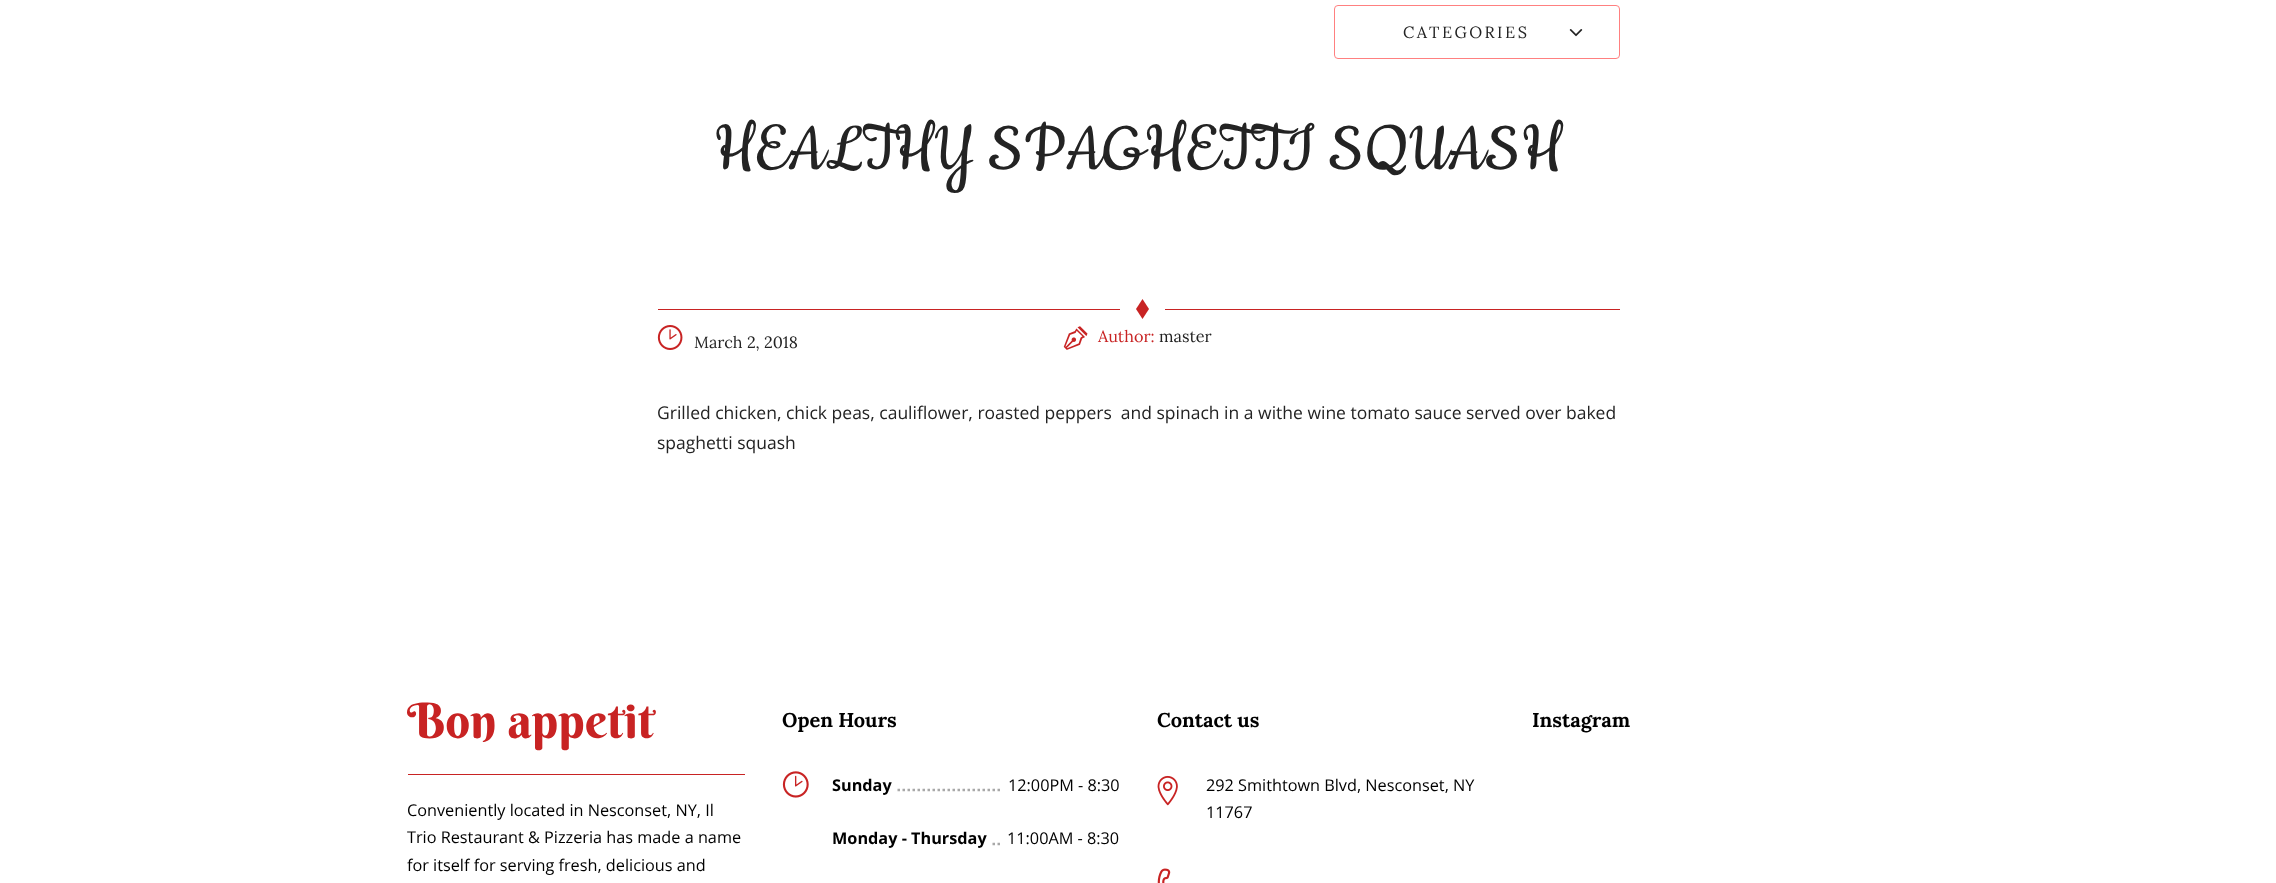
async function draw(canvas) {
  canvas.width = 2276
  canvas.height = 883
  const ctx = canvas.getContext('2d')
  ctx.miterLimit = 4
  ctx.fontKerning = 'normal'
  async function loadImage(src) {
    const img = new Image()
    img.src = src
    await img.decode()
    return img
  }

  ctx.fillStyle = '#fff'
  ctx.fillRect(0, 0, 2276, 883)
  ctx.beginPath()
  ctx.roundRect(1334.5, 5.5, 285, 53, 3.5)
  ctx.strokeStyle = '#ff8080'
  ctx.stroke()
  ctx.letterSpacing = '2.5px'
  ctx.font = '16.25px Lora'
  ctx.fillStyle = '#232323'
  ctx.fillText('CATEGORIES', 1403, 38)
  ctx.drawImage(await loadImage('image0.png'), 1569, 29, 14, 8)
  ctx.letterSpacing = '0px'
  ctx.font = '75px Cookie'
  ctx.fillText('HEALTHY SPAGHETTI SQUASH', 714, 169)
  ctx.fillStyle = '#c82323'
  ctx.fillRect(658, 309, 462, 1)
  ctx.beginPath()
  ctx.moveTo(1142.5, 299)
  ctx.lineTo(1136, 309)
  ctx.lineTo(1142.5, 319)
  ctx.lineTo(1149, 309)
  ctx.closePath()
  ctx.fill()
  ctx.fillRect(1165, 309, 455, 1)
  ctx.drawImage(await loadImage('image1.png'), 657, 325, 26, 25)
  ctx.font = '16.25px Lora'
  ctx.fillStyle = '#232323'
  ctx.fillText('March 2, 2018', 694, 348)
  ctx.drawImage(await loadImage('image2.png'), 1063, 326, 25, 24)
  ctx.fillStyle = '#c82323'
  ctx.fillText('Author:', 1098, 342)
  ctx.fillStyle = '#232323'
  ctx.fillText('master', 1159, 342)
  ctx.font = '17.5px Open Sans'
  ctx.fillText('Grilled chicken, chick peas, cauliflower, roasted peppers  and spinach in a withe wine tomato sauce served over baked', 657, 419)
  ctx.fillText('spaghetti squash', 657, 449)
  ctx.fillStyle = '#c82323'
  ctx.fillRect(408, 774, 337, 1)
  ctx.font = '48.75px Berkshire Swash'
  ctx.fillText('Bon appetit', 407, 738)
  ctx.font = '16.25px Open Sans'
  ctx.fillStyle = '#000'
  ctx.fillText('Conveniently located in Nesconset, NY, Il', 407, 816)
  ctx.fillText('Trio Restaurant & Pizzeria has made a name', 407, 843)
  ctx.fillText('for itself for serving fresh, delicious and', 407, 871)
  ctx.font = 'bold 20px Lora'
  ctx.fillText('Open Hours', 782, 727)
  ctx.drawImage(await loadImage('image3.png'), 782, 771, 27, 27)
  ctx.font = 'bold 16.25px Open Sans'
  ctx.fillText('Sunday', 832, 791)
  ctx.beginPath()
  ctx.moveTo(897.5, 790)
  ctx.lineTo(1001, 790)
  ctx.strokeStyle = '#a8a8a8'
  ctx.lineWidth = 2.5
  ctx.setLineDash([2.5, 2.5])
  ctx.stroke()
  ctx.font = '16.25px Open Sans'
  ctx.fillText('12:00PM - 8:30', 1008, 791)
  ctx.font = 'bold 16.25px Open Sans'
  ctx.fillText('Monday - Thursday', 832, 844)
  ctx.beginPath()
  ctx.moveTo(992.5, 844)
  ctx.lineTo(995, 844)
  ctx.moveTo(997.5, 844)
  ctx.lineTo(1000, 844)
  ctx.setLineDash([])
  ctx.stroke()
  ctx.font = '16.25px Open Sans'
  ctx.fillText('11:00AM - 8:30', 1007, 844)
  ctx.font = 'bold 20px Lora'
  ctx.fillText('Contact us', 1157, 727)
  ctx.drawImage(await loadImage('image4.png'), 1157, 775, 21, 31)
  ctx.font = '16.25px Open Sans'
  ctx.fillText('292 Smithtown Blvd, Nesconset, NY', 1206, 791)
  ctx.fillText('11767', 1206, 818)
  ctx.drawImage(await loadImage('image5.png'), 1157, 868, 14, 15)
  ctx.font = 'bold 20px Lora'
  ctx.fillText('Instagram', 1532, 727)
}

draw(document.querySelector('canvas'))
